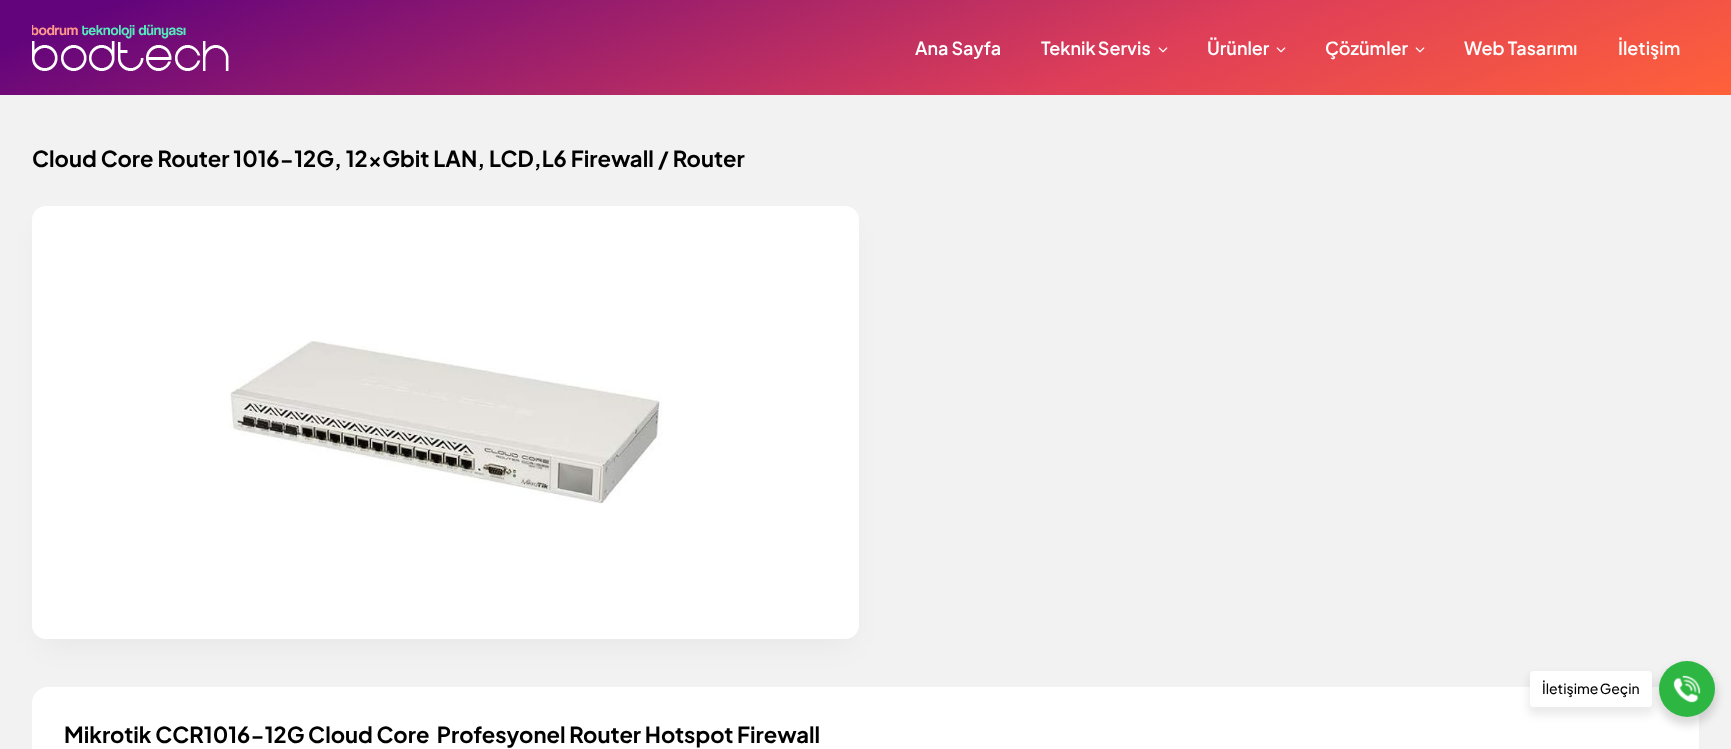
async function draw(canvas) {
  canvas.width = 1731
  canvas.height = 749
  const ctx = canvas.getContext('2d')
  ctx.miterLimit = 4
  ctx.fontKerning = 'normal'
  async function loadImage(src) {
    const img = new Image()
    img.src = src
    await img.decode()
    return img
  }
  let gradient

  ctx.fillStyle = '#f2f2f2'
  ctx.fillRect(0, 0, 1731, 749)
  gradient = ctx.createLinearGradient(738, -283, 993, 378)
  gradient.addColorStop(0.06, '#63047c')
  gradient.addColorStop(0.65, '#de3e58')
  gradient.addColorStop(1, '#ff613a')
  ctx.fillStyle = gradient
  ctx.fillRect(0, 0, 1731, 95)
  ctx.drawImage(await loadImage('image0.png'), 32, 24, 197, 47)
  ctx.font = '600 18px Plus Jakarta Sans'
  ctx.fillStyle = '#fff'
  ctx.fillText('Ana Sayfa', 915, 55)
  ctx.wordSpacing = '-1px'
  ctx.fillText('Teknik Servis', 1041, 55)
  ctx.drawImage(await loadImage('image1.png'), 1158, 47, 10, 6)
  ctx.wordSpacing = '0px'
  ctx.fillText('Ürünler', 1207, 55)
  ctx.drawImage(await loadImage('image2.png'), 1276, 47, 10, 6)
  ctx.fillText('Çözümler', 1325, 55)
  ctx.drawImage(await loadImage('image3.png'), 1415, 47, 10, 6)
  ctx.fillText('Web Tasarımı', 1464, 55)
  ctx.fillText('İletişim', 1618, 55)
  ctx.font = 'bold 22px Plus Jakarta Sans'
  ctx.fillStyle = '#000'
  ctx.fillText('Cloud Core Router 1016-12G, 12xGbit LAN, LCD,L6 Firewall / Router', 32, 167)
  ctx.fillStyle = '#0000000d'
  ctx.filter = 'blur(15px)'
  ctx.beginPath()
  ctx.roundRect(42, 231, 807, 413, 4)
  ctx.fill()
  ctx.filter = 'none'
  ctx.fillStyle = '#fff'
  ctx.beginPath()
  ctx.roundRect(32, 206, 827, 433, 14)
  ctx.fill()
  ctx.drawImage(await loadImage('image4.png'), 229, 340, 433, 164)
  ctx.beginPath()
  ctx.roundRect(32, 687, 1667, 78, 16)
  ctx.fill()
  ctx.wordSpacing = '-0.25px'
  ctx.fillStyle = '#000'
  ctx.fillText('Mikrotik CCR1016-12G Cloud Core  Profesyonel Router Hotspot Firewall', 64, 743)
  ctx.fillStyle = '#00000024'
  ctx.filter = 'blur(4px)'
  ctx.beginPath()
  ctx.roundRect(1657, 665, 60, 60, 30)
  ctx.fill()
  ctx.filter = 'none'
  ctx.fillStyle = '#2db742'
  ctx.beginPath()
  ctx.arc(1687, 689, 28, 0, 2 * Math.PI)
  ctx.fill()
  ctx.fillStyle = '#00000014'
  ctx.filter = 'blur(4px)'
  ctx.beginPath()
  ctx.roundRect(1528, 675, 126, 40, 6)
  ctx.fill()
  ctx.filter = 'none'
  ctx.fillStyle = '#fff'
  ctx.beginPath()
  ctx.roundRect(1530, 671, 122, 36, 4)
  ctx.fill()
  ctx.wordSpacing = '-1px'
  ctx.font = '500 14px Plus Jakarta Sans'
  ctx.fillStyle = '#000'
  ctx.fillText('İletişime Geçin', 1542, 694)
  ctx.drawImage(await loadImage('image5.png'), 1673, 675, 28, 28)
}

draw(document.querySelector('canvas'))
